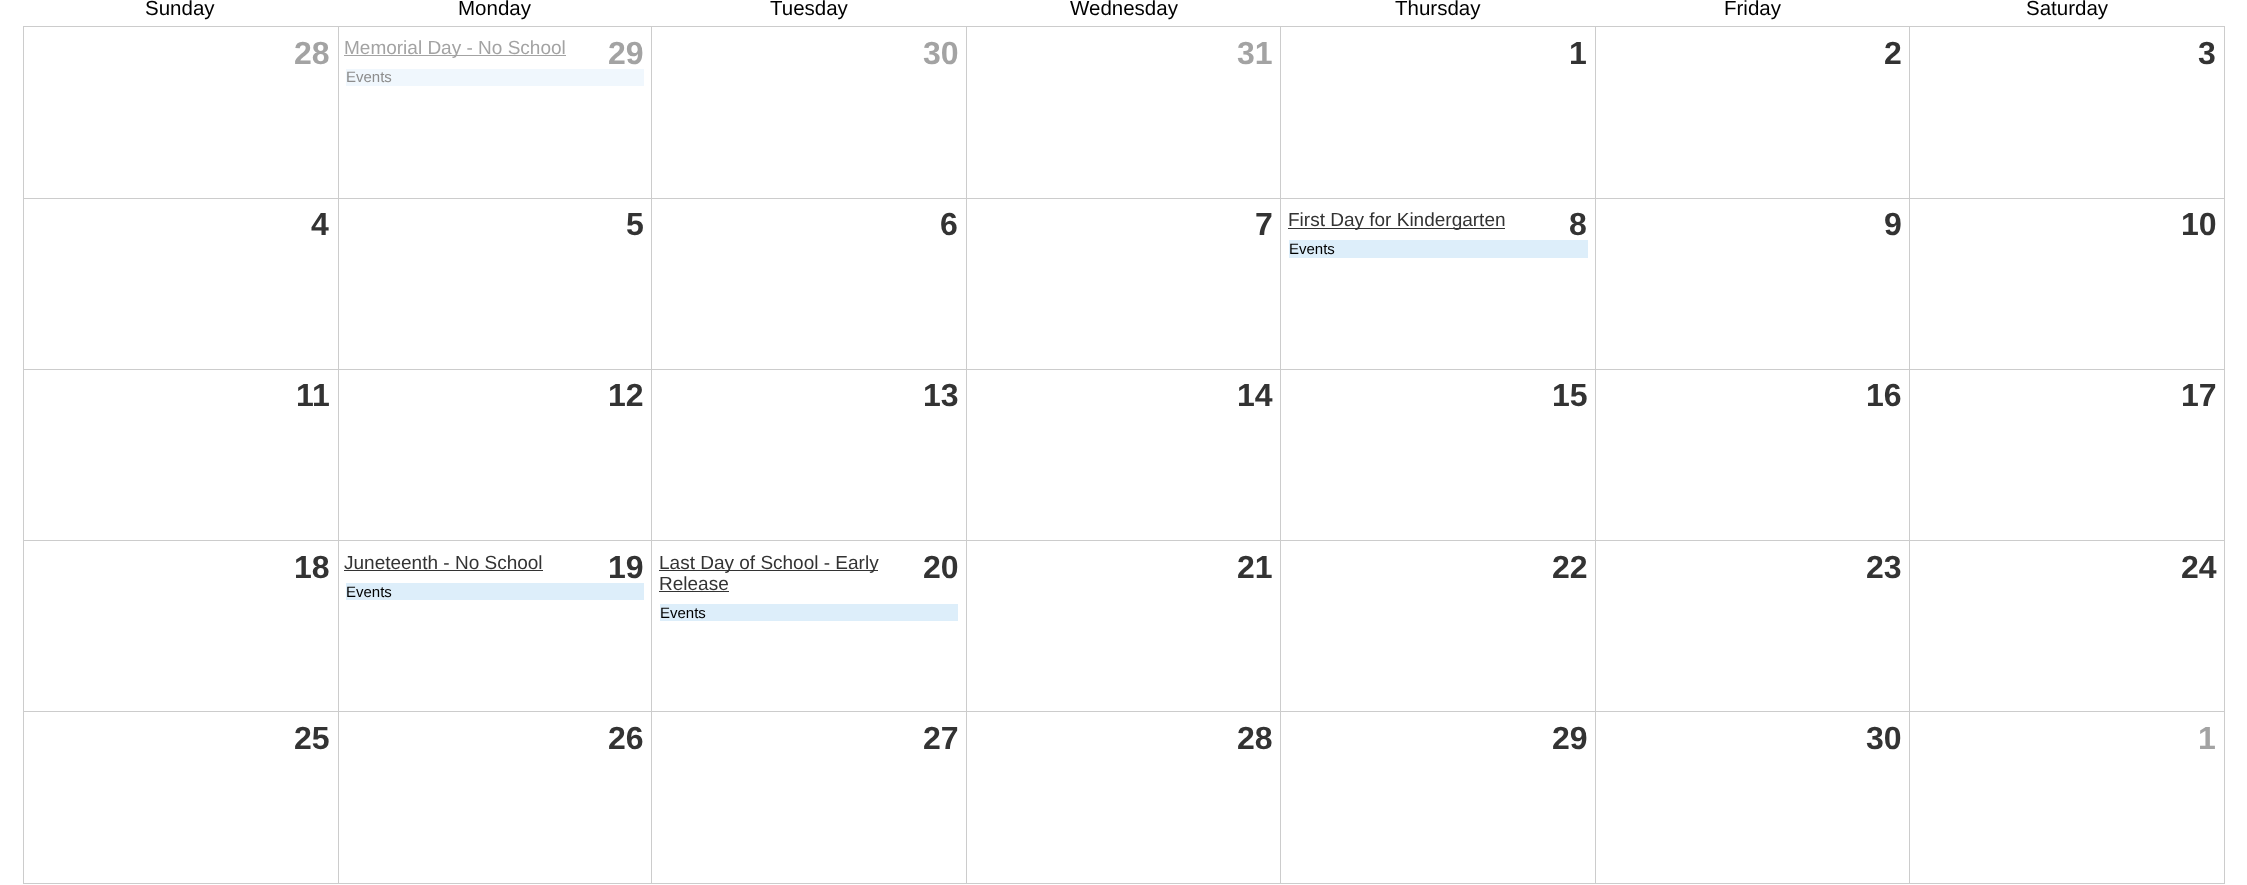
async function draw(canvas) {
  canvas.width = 2247
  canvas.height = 885
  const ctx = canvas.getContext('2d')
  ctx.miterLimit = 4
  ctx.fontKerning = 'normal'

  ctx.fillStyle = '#fff'
  ctx.fillRect(0, 0, 2247, 885)
  ctx.font = '20.5px Liberation Sans'
  ctx.fillStyle = '#000'
  ctx.fillText('Sunday', 145, 15)
  ctx.fillText('Monday', 458, 15)
  ctx.fillText('Tuesday', 770, 15)
  ctx.fillText('Wednesday', 1070, 15)
  ctx.fillText('Thursday', 1395, 15)
  ctx.fillText('Friday', 1724, 15)
  ctx.fillText('Saturday', 2026, 15)
  ctx.fillStyle = '#ccc'
  ctx.fillRect(23, 26, 2202, 1)
  ctx.fillRect(2224, 198, 1, 686)
  ctx.fillRect(2224, 26, 1, 173)
  ctx.fillRect(1909, 883, 316, 1)
  ctx.fillRect(1909, 711, 1, 173)
  ctx.fillRect(1909, 711, 316, 1)
  ctx.fillRect(1909, 540, 1, 173)
  ctx.fillRect(1909, 540, 316, 1)
  ctx.fillRect(1909, 369, 1, 172)
  ctx.fillRect(1909, 369, 316, 1)
  ctx.fillRect(1909, 198, 1, 172)
  ctx.fillRect(1909, 198, 316, 1)
  ctx.fillRect(1909, 26, 1, 173)
  ctx.fillRect(1595, 883, 315, 1)
  ctx.fillRect(1595, 711, 1, 173)
  ctx.fillRect(1595, 711, 315, 1)
  ctx.fillRect(1595, 540, 1, 173)
  ctx.fillRect(1595, 540, 315, 1)
  ctx.fillRect(1595, 369, 1, 172)
  ctx.fillRect(1595, 369, 315, 1)
  ctx.fillRect(1595, 198, 1, 172)
  ctx.fillRect(1595, 198, 315, 1)
  ctx.fillRect(1595, 26, 1, 173)
  ctx.fillRect(1280, 883, 316, 1)
  ctx.fillRect(1280, 711, 1, 173)
  ctx.fillRect(1280, 711, 316, 1)
  ctx.fillRect(1280, 540, 1, 173)
  ctx.fillRect(1280, 540, 316, 1)
  ctx.fillRect(1280, 369, 1, 172)
  ctx.fillRect(1280, 369, 316, 1)
  ctx.fillRect(1280, 198, 1, 172)
  ctx.fillRect(1280, 198, 316, 1)
  ctx.fillRect(1280, 26, 1, 173)
  ctx.fillRect(966, 883, 315, 1)
  ctx.fillRect(966, 711, 1, 173)
  ctx.fillRect(966, 711, 315, 1)
  ctx.fillRect(966, 540, 1, 173)
  ctx.fillRect(966, 540, 315, 1)
  ctx.fillRect(966, 369, 1, 172)
  ctx.fillRect(966, 369, 315, 1)
  ctx.fillRect(966, 198, 1, 172)
  ctx.fillRect(966, 198, 315, 1)
  ctx.fillRect(966, 26, 1, 173)
  ctx.fillRect(651, 883, 317, 1)
  ctx.fillRect(651, 711, 1, 173)
  ctx.fillRect(651, 711, 317, 1)
  ctx.fillRect(651, 540, 1, 173)
  ctx.fillRect(651, 540, 317, 1)
  ctx.fillRect(651, 369, 1, 172)
  ctx.fillRect(651, 369, 317, 1)
  ctx.fillRect(651, 198, 1, 172)
  ctx.fillRect(651, 198, 317, 1)
  ctx.fillRect(651, 26, 1, 173)
  ctx.fillRect(338, 883, 315, 1)
  ctx.fillRect(338, 711, 1, 173)
  ctx.fillRect(338, 711, 315, 1)
  ctx.fillRect(338, 540, 1, 173)
  ctx.fillRect(338, 540, 315, 1)
  ctx.fillRect(338, 369, 1, 172)
  ctx.fillRect(338, 369, 315, 1)
  ctx.fillRect(338, 198, 1, 172)
  ctx.fillRect(338, 198, 315, 1)
  ctx.fillRect(338, 26, 1, 173)
  ctx.fillRect(23, 883, 316, 1)
  ctx.fillRect(23, 711, 1, 173)
  ctx.fillRect(23, 711, 316, 1)
  ctx.fillRect(23, 540, 1, 173)
  ctx.fillRect(23, 540, 316, 1)
  ctx.fillRect(23, 369, 1, 172)
  ctx.fillRect(23, 369, 316, 1)
  ctx.fillRect(23, 198, 1, 172)
  ctx.fillRect(23, 198, 316, 1)
  ctx.fillRect(23, 26, 1, 173)
  ctx.font = 'bold 32px Liberation Sans'
  ctx.fillStyle = '#a3a3a3'
  ctx.fillText('28', 294, 64)
  ctx.fillRect(344, 55, 222, 1)
  ctx.font = '19px Liberation Sans'
  ctx.fillText('Memorial Day - No School', 344, 54)
  ctx.fillStyle = '#f0f7fd'
  ctx.fillRect(346, 69, 298, 17)
  ctx.font = '15px Liberation Sans'
  ctx.fillStyle = '#8c8c8c'
  ctx.fillText('Events', 346, 82)
  ctx.font = 'bold 32px Liberation Sans'
  ctx.fillStyle = '#a3a3a3'
  ctx.fillText('29', 608, 64)
  ctx.fillText('30', 923, 64)
  ctx.fillText('31', 1237, 64)
  ctx.fillStyle = '#333'
  ctx.fillText('1', 1569, 64)
  ctx.fillText('2', 1884, 64)
  ctx.fillText('3', 2198, 64)
  ctx.fillText('4', 311, 235)
  ctx.fillText('5', 626, 235)
  ctx.fillText('6', 940, 235)
  ctx.fillText('7', 1255, 235)
  ctx.fillRect(1288, 228, 217, 1)
  ctx.font = '19px Liberation Sans'
  ctx.fillText('First Day for Kindergarten', 1288, 226)
  ctx.fillStyle = '#ddeefa'
  ctx.fillRect(1289, 240, 299, 18)
  ctx.font = '15px Liberation Sans'
  ctx.fillStyle = '#000'
  ctx.fillText('Events', 1289, 254)
  ctx.font = 'bold 32px Liberation Sans'
  ctx.fillStyle = '#333'
  ctx.fillText('8', 1569, 235)
  ctx.fillText('9', 1884, 235)
  ctx.fillText('10', 2181, 235)
  ctx.fillText('11', 296, 406)
  ctx.fillText('12', 608, 406)
  ctx.fillText('13', 923, 406)
  ctx.fillText('14', 1237, 406)
  ctx.fillText('15', 1552, 406)
  ctx.fillText('16', 1866, 406)
  ctx.fillText('17', 2181, 406)
  ctx.fillText('18', 294, 578)
  ctx.font = '19px Liberation Sans'
  ctx.fillText('Juneteenth - No School', 344, 569)
  ctx.fillRect(344, 570, 199, 1)
  ctx.fillStyle = '#ddeefa'
  ctx.fillRect(346, 583, 298, 17)
  ctx.font = '15px Liberation Sans'
  ctx.fillStyle = '#000'
  ctx.fillText('Events', 346, 597)
  ctx.font = 'bold 32px Liberation Sans'
  ctx.fillStyle = '#333'
  ctx.fillText('19', 608, 578)
  ctx.fillRect(659, 570, 219, 1)
  ctx.font = '19px Liberation Sans'
  ctx.fillText('Last Day of School - Early', 659, 569)
  ctx.fillText('Release', 659, 590)
  ctx.fillRect(659, 591, 70, 1)
  ctx.fillStyle = '#ddeefa'
  ctx.fillRect(660, 604, 298, 17)
  ctx.font = '15px Liberation Sans'
  ctx.fillStyle = '#000'
  ctx.fillText('Events', 660, 618)
  ctx.font = 'bold 32px Liberation Sans'
  ctx.fillStyle = '#333'
  ctx.fillText('20', 923, 578)
  ctx.fillText('21', 1237, 578)
  ctx.fillText('22', 1552, 578)
  ctx.fillText('23', 1866, 578)
  ctx.fillText('24', 2181, 578)
  ctx.fillText('25', 294, 749)
  ctx.fillText('26', 608, 749)
  ctx.fillText('27', 923, 749)
  ctx.fillText('28', 1237, 749)
  ctx.fillText('29', 1552, 749)
  ctx.fillText('30', 1866, 749)
  ctx.fillStyle = '#a3a3a3'
  ctx.fillText('1', 2198, 749)
}

draw(document.querySelector('canvas'))
